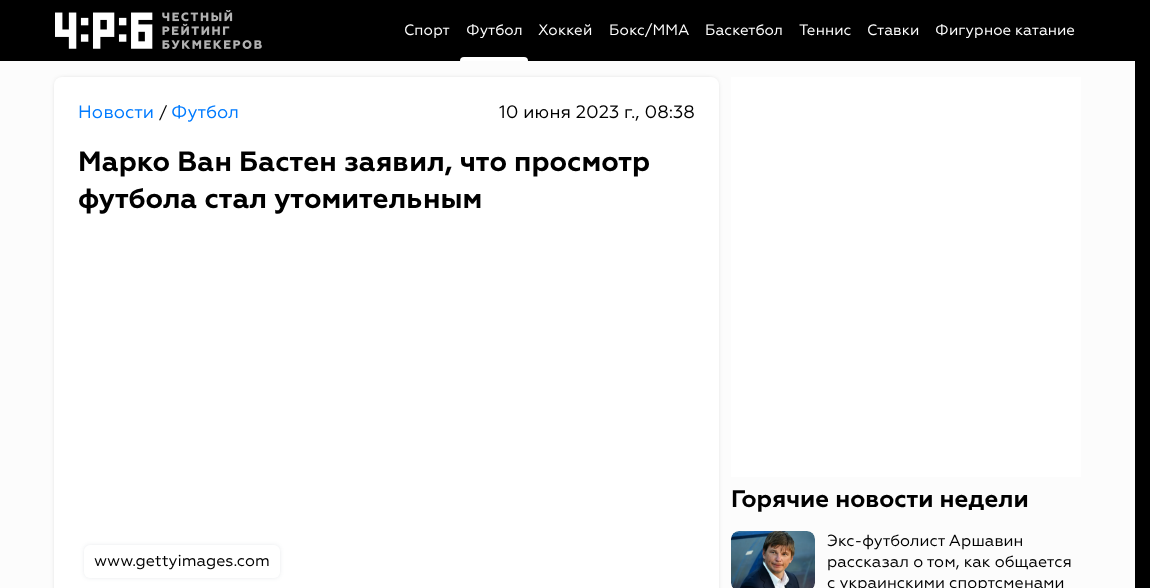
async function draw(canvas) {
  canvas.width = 1150
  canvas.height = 588
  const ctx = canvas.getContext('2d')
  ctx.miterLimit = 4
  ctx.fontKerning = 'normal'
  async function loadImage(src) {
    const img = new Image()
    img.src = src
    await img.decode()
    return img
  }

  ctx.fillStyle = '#000'
  ctx.fillRect(0, 0, 1150, 588)
  ctx.fillStyle = '#fcfcfc'
  ctx.fillRect(0, 61, 1135, 527)
  ctx.drawImage(await loadImage('image0.png'), 55, 10, 207, 39)
  ctx.font = '15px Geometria'
  ctx.fillStyle = '#fff'
  ctx.fillText('Спорт', 404, 35)
  ctx.fillText('Футбол', 466, 35)
  ctx.beginPath()
  ctx.roundRect(460, 57, 68, 4, [4, 4, 0, 0])
  ctx.fill()
  ctx.fillText('Хоккей', 538, 35)
  ctx.fillText('Бокс/MMA', 609, 35)
  ctx.fillText('Баскетбол', 705, 35)
  ctx.fillText('Теннис', 799, 35)
  ctx.fillText('Ставки', 867, 35)
  ctx.fillText('Фигурное катание', 935, 35)
  ctx.fillStyle = '#00000080'
  ctx.filter = 'blur(3px)'
  ctx.beginPath()
  ctx.roundRect(58, 81, 657, 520, 4)
  ctx.fill()
  ctx.filter = 'none'
  ctx.fillStyle = '#fff'
  ctx.beginPath()
  ctx.roundRect(54, 77, 665, 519, 8)
  ctx.fill()
  ctx.font = '18px Geometria'
  ctx.fillStyle = '#007bff'
  ctx.fillText('Новости', 78, 118)
  ctx.font = '16px Geometria'
  ctx.fillStyle = '#000'
  ctx.fillText('/', 159, 118)
  ctx.font = '18px Geometria'
  ctx.fillStyle = '#007bff'
  ctx.fillText('Футбол', 171, 118)
  ctx.fillStyle = '#000'
  ctx.fillText('10 июня 2023 г., 08:38', 499, 118)
  ctx.font = 'bold 28px Geometria'
  ctx.fillText('Марко Ван Бастен заявил, что просмотр', 78, 171)
  ctx.fillText('футбола стал утомительным', 78, 208)
  ctx.fillStyle = '#223c501a'
  ctx.filter = 'blur(2px)'
  ctx.beginPath()
  ctx.roundRect(84, 545, 196, 33, 6)
  ctx.fill()
  ctx.filter = 'none'
  ctx.fillStyle = '#fff'
  ctx.beginPath()
  ctx.roundRect(84, 545, 196, 33, 6)
  ctx.fill()
  ctx.font = '16px Geometria'
  ctx.fillStyle = '#000'
  ctx.fillText('www.gettyimages.com', 94, 566)
  ctx.fillStyle = '#fff'
  ctx.fillRect(731, 77, 350, 400)
  ctx.font = 'bold 24px Geometria'
  ctx.fillStyle = '#000'
  ctx.fillText('Горячие новости недели', 731, 507)
  ctx.drawImage(await loadImage('image1.png'), 731, 531, 84, 57)
  ctx.font = '16px Geometria'
  ctx.fillText('Экс-футболист Аршавин', 827, 546)
  ctx.fillText('рассказал о том, как общается', 827, 567)
  ctx.fillText('с украинскими спортсменами', 827, 588)
}

draw(document.querySelector('canvas'))
